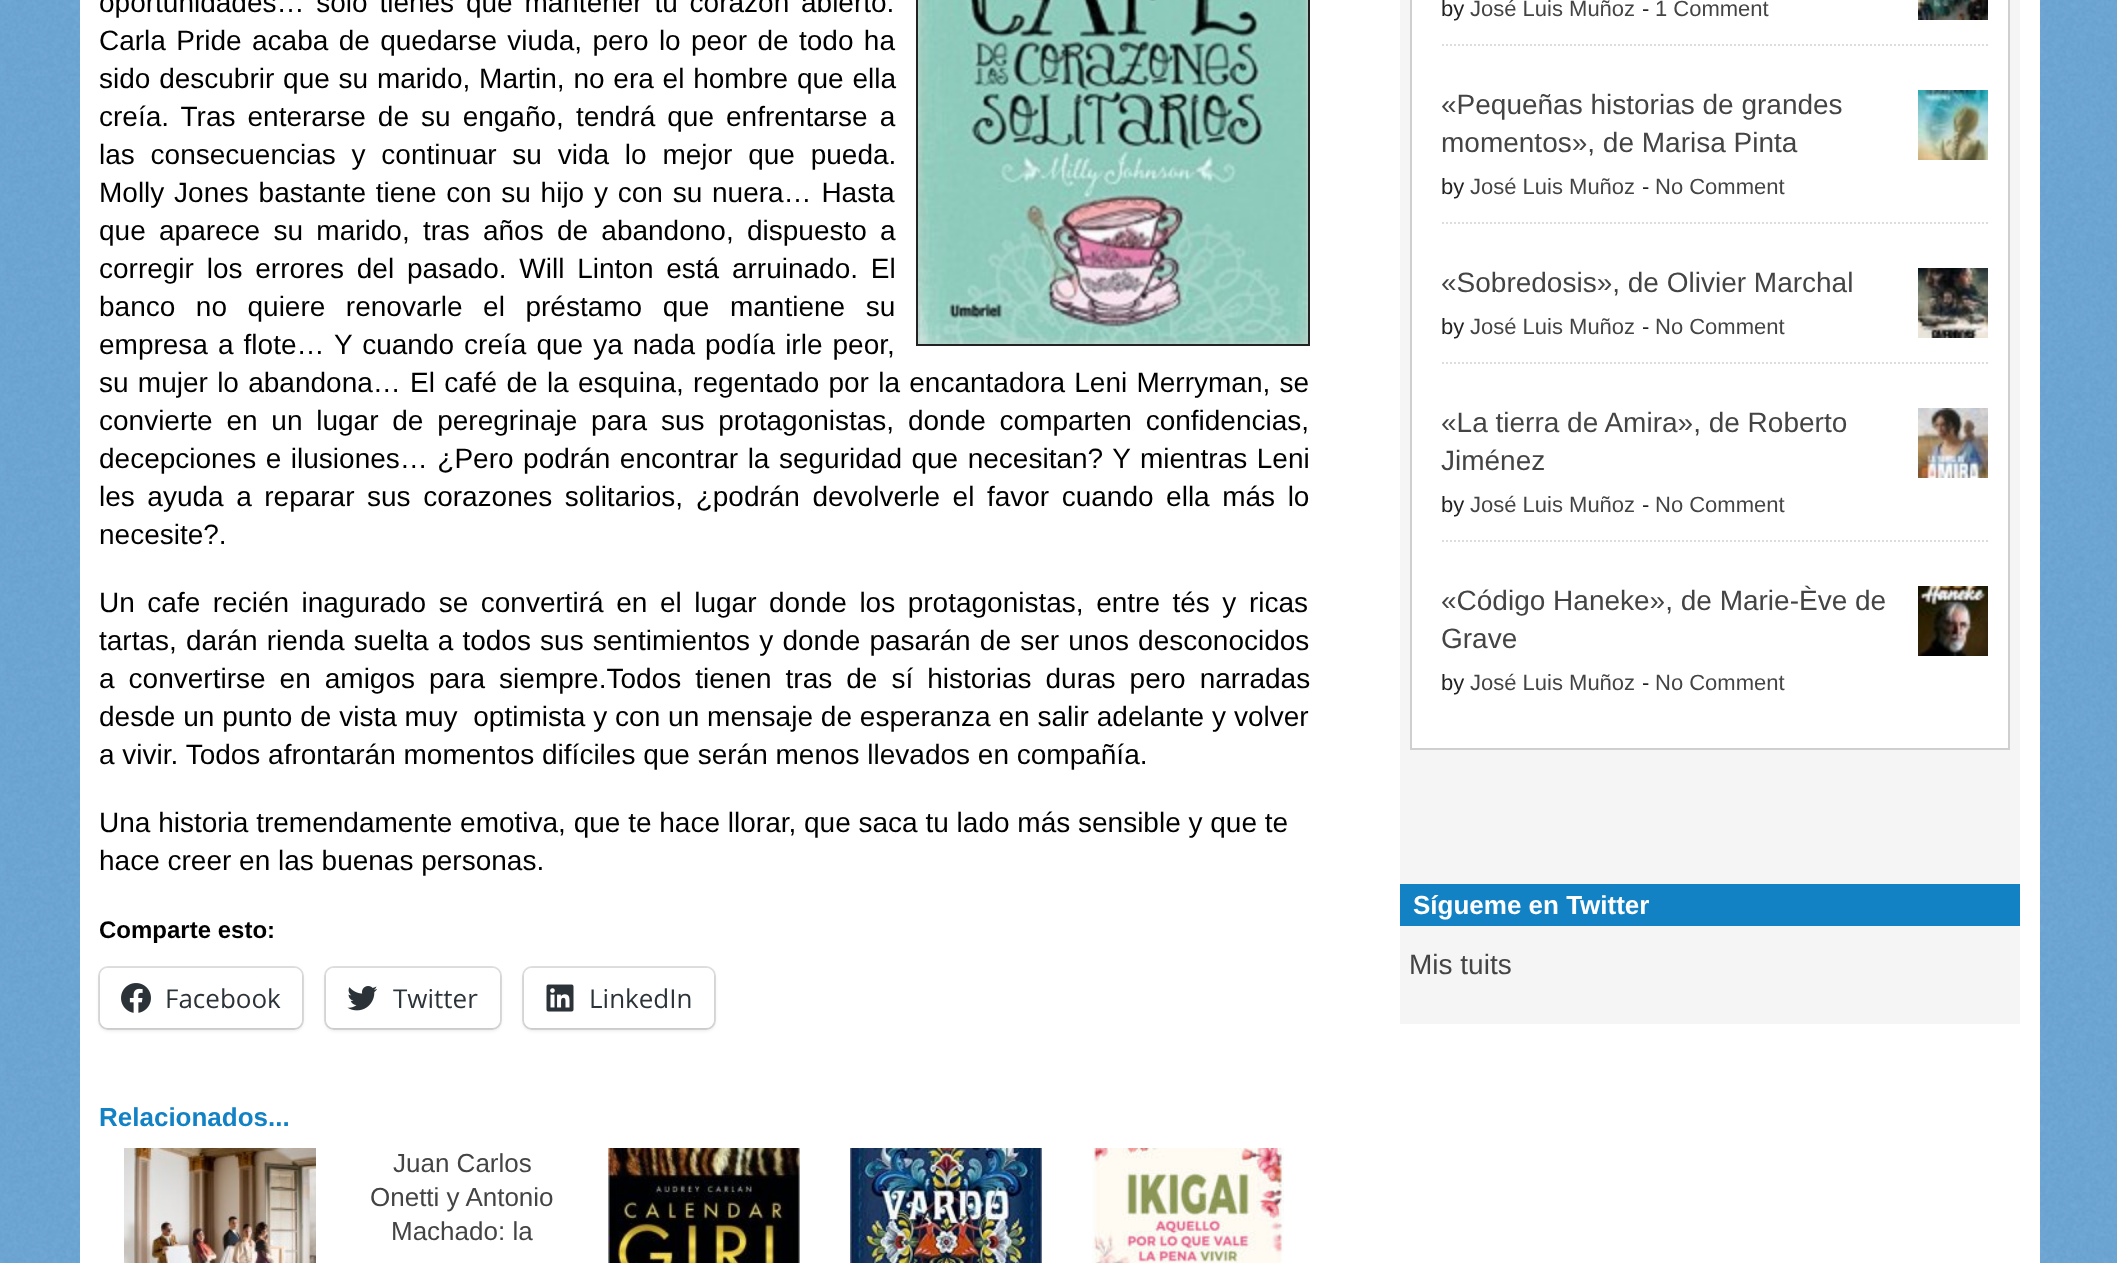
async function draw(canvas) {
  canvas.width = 2117
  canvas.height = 1263
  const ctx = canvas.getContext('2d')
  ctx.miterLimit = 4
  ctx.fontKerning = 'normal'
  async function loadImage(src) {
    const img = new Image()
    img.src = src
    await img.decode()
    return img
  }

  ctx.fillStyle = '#fff'
  ctx.fillRect(0, 0, 2117, 1263)
  ctx.drawImage(await loadImage('image0.png'), 0, 0, 2117, 1263)
  ctx.fillRect(80, 0, 1960, 1263)
  ctx.strokeStyle = '#222'
  ctx.lineWidth = 2
  ctx.strokeRect(917, -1, 392, 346)
  ctx.drawImage(await loadImage('image1.png'), 918, 0, 390, 344)
  ctx.wordSpacing = '4px'
  ctx.font = '28px Liberation Sans'
  ctx.fillStyle = '#000'
  ctx.fillText('oportunidades… solo tienes que mantener tu corazón abierto.', 99, 12)
  ctx.wordSpacing = '2.6px'
  ctx.fillText('Carla Pride acaba de quedarse viuda, pero lo peor de todo ha', 99, 50)
  ctx.wordSpacing = '1px'
  ctx.fillText('sido descubrir que su marido, Martin, no era el hombre que ella', 99, 88)
  ctx.wordSpacing = '4.25px'
  ctx.fillText('creía. Tras enterarse de su engaño, tendrá que enfrentarse a', 99, 126)
  ctx.wordSpacing = '8px'
  ctx.fillText('las consecuencias y continuar su vida lo mejor que pueda.', 99, 164)
  ctx.wordSpacing = '2px'
  ctx.fillText('Molly Jones bastante tiene con su hijo y con su nuera… Hasta', 99, 202)
  ctx.wordSpacing = '5.5px'
  ctx.fillText('que aparece su marido, tras años de abandono, dispuesto a', 99, 240)
  ctx.wordSpacing = '5px'
  ctx.fillText('corregir los errores del pasado. Will Linton está arruinado. El', 99, 278)
  ctx.wordSpacing = '12.75px'
  ctx.fillText('banco no quiere renovarle el préstamo que mantiene su', 99, 316)
  ctx.wordSpacing = '2.25px'
  ctx.fillText('empresa a flote… Y cuando creía que ya nada podía irle peor,', 99, 354)
  ctx.wordSpacing = '1.5px'
  ctx.fillText('su mujer lo abandona… El café de la esquina, regentado por la encantadora Leni Merryman, se', 99, 392)
  ctx.wordSpacing = '6px'
  ctx.fillText('convierte en un lugar de peregrinaje para sus protagonistas, donde comparten confidencias,', 99, 430)
  ctx.wordSpacing = '1.75px'
  ctx.fillText('decepciones e ilusiones… ¿Pero podrán encontrar la seguridad que necesitan? Y mientras Leni', 99, 468)
  ctx.wordSpacing = '4.75px'
  ctx.fillText('les ayuda a reparar sus corazones solitarios, ¿podrán devolverle el favor cuando ella más lo', 99, 506)
  ctx.wordSpacing = '0px'
  ctx.fillText('necesite?.', 99, 544)
  ctx.wordSpacing = '4.75px'
  ctx.fillText('Un cafe recién inagurado se convertirá en el lugar donde los protagonistas, entre tés y ricas', 99, 612)
  ctx.wordSpacing = '1.4px'
  ctx.fillText('tartas, darán rienda suelta a todos sus sentimientos y donde pasarán de ser unos desconocidos', 99, 650)
  ctx.wordSpacing = '6.25px'
  ctx.fillText('a convertirse en amigos para siempre.Todos tienen tras de sí historias duras pero narradas', 99, 688)
  ctx.wordSpacing = '0.1px'
  ctx.fillText('desde un punto de vista muy  optimista y con un mensaje de esperanza en salir adelante y volver', 99, 726)
  ctx.wordSpacing = '0px'
  ctx.fillText('a vivir. Todos afrontarán momentos difíciles que serán menos llevados en compañía.', 99, 764)
  ctx.fillText('Una historia tremendamente emotiva, que te hace llorar, que saca tu lado más sensible y que te', 99, 832)
  ctx.fillText('hace creer en las buenas personas.', 99, 870)
  ctx.font = 'bold 24px Liberation Sans'
  ctx.fillText('Comparte esto:', 99, 938)
  ctx.beginPath()
  ctx.roundRect(99, 967, 204, 62, 9)
  ctx.strokeStyle = '#e0e0e0'
  ctx.stroke()
  ctx.fillStyle = '#0000001f'
  ctx.filter = 'blur(2px)'
  ctx.beginPath()
  ctx.roundRect(100, 970, 202, 60, 8)
  ctx.fill()
  ctx.filter = 'none'
  ctx.fillStyle = '#fff'
  ctx.beginPath()
  ctx.roundRect(100, 968, 202, 60, 8)
  ctx.fill()
  ctx.drawImage(await loadImage('image2.png'), 121, 983, 30, 30)
  ctx.font = '26px Open Sans'
  ctx.fillStyle = '#2c3338'
  ctx.fillText('Facebook', 165, 1008)
  ctx.beginPath()
  ctx.roundRect(325, 967, 176, 62, 9)
  ctx.stroke()
  ctx.fillStyle = '#0000001f'
  ctx.filter = 'blur(2px)'
  ctx.beginPath()
  ctx.roundRect(326, 970, 174, 60, 8)
  ctx.fill()
  ctx.filter = 'none'
  ctx.fillStyle = '#fff'
  ctx.beginPath()
  ctx.roundRect(326, 968, 174, 60, 8)
  ctx.fill()
  ctx.drawImage(await loadImage('image3.png'), 347, 986, 31, 25)
  ctx.fillStyle = '#2c3338'
  ctx.fillText('Twitter', 393, 1008)
  ctx.beginPath()
  ctx.roundRect(523, 967, 192, 62, 9)
  ctx.stroke()
  ctx.fillStyle = '#0000001f'
  ctx.filter = 'blur(2px)'
  ctx.beginPath()
  ctx.roundRect(524, 970, 190, 60, 8)
  ctx.fill()
  ctx.filter = 'none'
  ctx.fillStyle = '#fff'
  ctx.beginPath()
  ctx.roundRect(524, 968, 190, 60, 8)
  ctx.fill()
  ctx.drawImage(await loadImage('image4.png'), 546, 984, 28, 28)
  ctx.fillStyle = '#2c3338'
  ctx.fillText('LinkedIn', 589, 1008)
  ctx.font = 'bold 26px Liberation Sans'
  ctx.fillStyle = '#1282c4'
  ctx.fillText('Relacionados...', 99, 1126)
  ctx.drawImage(await loadImage('image5.png'), 124, 1148, 192, 115)
  ctx.font = '26px Liberation Sans'
  ctx.fillStyle = '#444'
  ctx.fillText('Juan Carlos', 393, 1172)
  ctx.fillText('Onetti y Antonio', 370, 1206)
  ctx.fillText('Machado: la', 391, 1240)
  ctx.drawImage(await loadImage('image6.png'), 608, 1148, 192, 115)
  ctx.drawImage(await loadImage('image7.png'), 850, 1148, 192, 115)
  ctx.drawImage(await loadImage('image8.png'), 1092, 1148, 192, 115)
  ctx.fillStyle = '#f5f5f5'
  ctx.fillRect(1400, 0, 620, 1024)
  ctx.fillStyle = '#fff'
  ctx.fillRect(1412, 0, 596, 748)
  ctx.fillStyle = '#cfcfcf'
  ctx.fillRect(2008, 0, 2, 750)
  ctx.fillRect(1410, 748, 600, 2)
  ctx.fillRect(1410, 0, 2, 750)
  ctx.beginPath()
  ctx.moveTo(1442, 45)
  ctx.lineTo(1988, 45)
  ctx.strokeStyle = '#ddd'
  ctx.setLineDash([2, 2])
  ctx.stroke()
  ctx.font = '22px Liberation Sans'
  ctx.fillStyle = '#222'
  ctx.fillText('by', 1441, 16)
  ctx.fillStyle = '#444'
  ctx.fillText('José Luis Muñoz', 1470, 16)
  ctx.fillStyle = '#222'
  ctx.fillText('-', 1642, 16)
  ctx.fillStyle = '#444'
  ctx.fillText('1 Comment', 1655, 16)
  ctx.drawImage(await loadImage('image9.png'), 1918, 0, 70, 20)
  ctx.beginPath()
  ctx.moveTo(1442, 223)
  ctx.lineTo(1988, 223)
  ctx.stroke()
  ctx.font = '28px Liberation Sans'
  ctx.fillText('«Pequeñas historias de grandes', 1441, 114)
  ctx.drawImage(await loadImage('image10.png'), 1918, 90, 70, 70)
  ctx.fillText('momentos», de Marisa Pinta', 1441, 152)
  ctx.font = '22px Liberation Sans'
  ctx.fillStyle = '#222'
  ctx.fillText('by', 1441, 194)
  ctx.fillStyle = '#444'
  ctx.fillText('José Luis Muñoz', 1470, 194)
  ctx.fillStyle = '#222'
  ctx.fillText('-', 1642, 194)
  ctx.fillStyle = '#444'
  ctx.fillText('No Comment', 1655, 194)
  ctx.beginPath()
  ctx.moveTo(1442, 363)
  ctx.lineTo(1988, 363)
  ctx.stroke()
  ctx.font = '28px Liberation Sans'
  ctx.fillText('«Sobredosis», de Olivier Marchal', 1441, 292)
  ctx.drawImage(await loadImage('image11.png'), 1918, 268, 70, 70)
  ctx.font = '22px Liberation Sans'
  ctx.fillStyle = '#222'
  ctx.fillText('by', 1441, 334)
  ctx.fillStyle = '#444'
  ctx.fillText('José Luis Muñoz', 1470, 334)
  ctx.fillStyle = '#222'
  ctx.fillText('-', 1642, 334)
  ctx.fillStyle = '#444'
  ctx.fillText('No Comment', 1655, 334)
  ctx.beginPath()
  ctx.moveTo(1442, 541)
  ctx.lineTo(1988, 541)
  ctx.stroke()
  ctx.font = '28px Liberation Sans'
  ctx.fillText('«La tierra de Amira», de Roberto', 1441, 432)
  ctx.drawImage(await loadImage('image12.png'), 1918, 408, 70, 70)
  ctx.fillText('Jiménez', 1441, 470)
  ctx.font = '22px Liberation Sans'
  ctx.fillStyle = '#222'
  ctx.fillText('by', 1441, 512)
  ctx.fillStyle = '#444'
  ctx.fillText('José Luis Muñoz', 1470, 512)
  ctx.fillStyle = '#222'
  ctx.fillText('-', 1642, 512)
  ctx.fillStyle = '#444'
  ctx.fillText('No Comment', 1655, 512)
  ctx.font = '28px Liberation Sans'
  ctx.fillText('«Código Haneke», de Marie-Ève de', 1441, 610)
  ctx.drawImage(await loadImage('image13.png'), 1918, 586, 70, 70)
  ctx.fillText('Grave', 1441, 648)
  ctx.font = '22px Liberation Sans'
  ctx.fillStyle = '#222'
  ctx.fillText('by', 1441, 690)
  ctx.fillStyle = '#444'
  ctx.fillText('José Luis Muñoz', 1470, 690)
  ctx.fillStyle = '#222'
  ctx.fillText('-', 1642, 690)
  ctx.fillStyle = '#444'
  ctx.fillText('No Comment', 1655, 690)
  ctx.fillStyle = '#1282c4'
  ctx.fillRect(1400, 884, 620, 42)
  ctx.font = 'bold 26px Liberation Sans'
  ctx.fillStyle = '#fff'
  ctx.fillText('Sígueme en Twitter', 1413, 914)
  ctx.font = '28px Liberation Sans'
  ctx.fillStyle = '#444'
  ctx.fillText('Mis tuits', 1409, 974)
}

draw(document.querySelector('canvas'))
